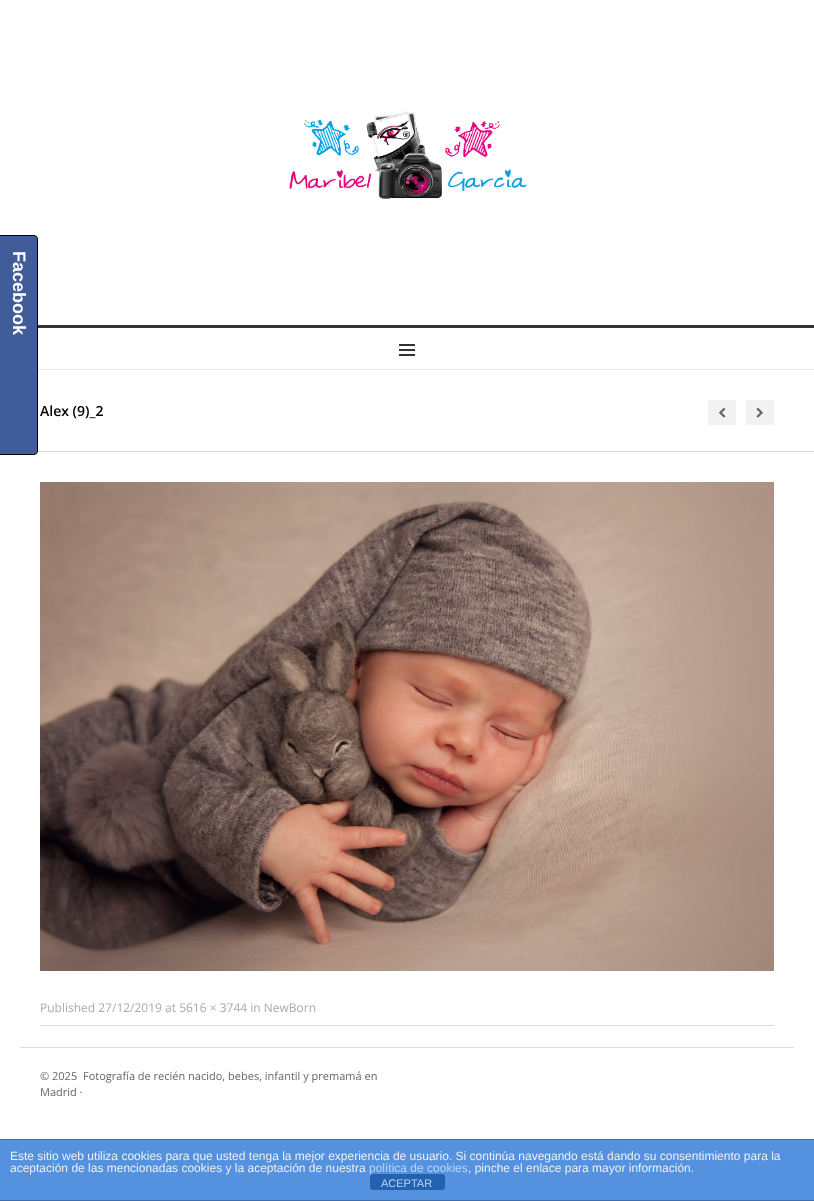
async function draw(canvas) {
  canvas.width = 814
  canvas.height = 1201
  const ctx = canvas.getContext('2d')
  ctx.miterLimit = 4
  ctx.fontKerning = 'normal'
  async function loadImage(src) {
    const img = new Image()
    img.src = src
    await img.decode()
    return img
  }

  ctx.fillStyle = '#fff'
  ctx.fillRect(0, 0, 814, 1201)
  ctx.fillStyle = '#ddd'
  ctx.fillRect(37, 451, 777, 1)
  ctx.fillStyle = '#405d9a'
  ctx.beginPath()
  ctx.moveTo(-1.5, 235.5)
  ctx.lineTo(34, 235.5)
  ctx.bezierCurveTo(36, 235.5, 37.5, 237, 37.5, 239)
  ctx.lineTo(37.5, 451)
  ctx.bezierCurveTo(37.5, 453, 36, 454.5, 34, 454.5)
  ctx.lineTo(-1.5, 454.5)
  ctx.closePath()
  ctx.fill()
  ctx.strokeStyle = '#000'
  ctx.stroke()
  ctx.font = 'bold 18px Liberation Sans'
  ctx.fillStyle = '#fff'
  ctx.save()
  ctx.translate(13, 251)
  ctx.rotate(90 * Math.PI / 180)
  ctx.fillText('Facebook', 0, 0)
  ctx.restore()
  ctx.drawImage(await loadImage('image0.png'), 289, 111, 238, 88)
  ctx.fillStyle = '#333'
  ctx.fillRect(38, 325, 776, 3)
  ctx.fillStyle = '#eaeaea'
  ctx.fillRect(38, 369, 776, 1)
  ctx.drawImage(await loadImage('image1.png'), 399, 344, 16, 12)
  ctx.font = '600 14px Open Sans'
  ctx.fillStyle = '#000'
  ctx.fillText('Alex (9)_2', 40, 416)
  ctx.fillStyle = '#f2f2f2'
  ctx.fillRect(708, 400, 28, 25)
  ctx.drawImage(await loadImage('image2.png'), 719, 407, 7, 11)
  ctx.fillRect(746, 400, 28, 25)
  ctx.drawImage(await loadImage('image3.png'), 756, 407, 7, 11)
  ctx.fillStyle = '#ddd'
  ctx.fillRect(40, 1025, 734, 1)
  ctx.drawImage(await loadImage('image4.png'), 40, 482, 734, 489)
  ctx.font = '12px Open Sans'
  ctx.fillStyle = '#aaa'
  ctx.fillText('Published 27/12/2019 at 5616 × 3744 in NewBorn', 40, 1012)
  ctx.fillStyle = '#ddd'
  ctx.fillRect(20, 1047, 774, 1)
  ctx.font = '11px Open Sans'
  ctx.fillStyle = '#666'
  ctx.fillText('© 2025', 40, 1080)
  ctx.fillText('Fotografía de recién nacido, bebes, infantil y premamá en', 83, 1080)
  ctx.fillText('Madrid ·', 40, 1096)
  ctx.fillStyle = '#5492e0'
  ctx.fillRect(0, 1140, 814, 60)
  ctx.fillStyle = '#3f6da7'
  ctx.fillRect(0, 1139, 814, 1)
  ctx.fillRect(0, 1200, 814, 1)
  ctx.font = '12px Liberation Sans'
  ctx.fillStyle = '#eee'
  ctx.fillText('Este sitio web utiliza cookies para que usted tenga la mejor experiencia de usuario. Si continúa navegando está dando su consentimiento para la', 10, 1160)
  ctx.fillText('aceptación de las mencionadas cookies y la aceptación de nuestra', 10, 1172)
  ctx.fillStyle = '#2462b0'
  ctx.beginPath()
  ctx.roundRect(370, 1174, 75, 16, 3)
  ctx.fill()
  ctx.fillStyle = '#b7d7ff'
  ctx.fillText('política de cookies', 369, 1172)
  ctx.fillStyle = '#eee'
  ctx.fillText(', pinche el enlace para mayor información.', 468, 1172)
  ctx.font = '11px Liberation Sans'
  ctx.fillStyle = '#b7d7ff'
  ctx.fillText('ACEPTAR', 381, 1187)
}

draw(document.querySelector('canvas'))
